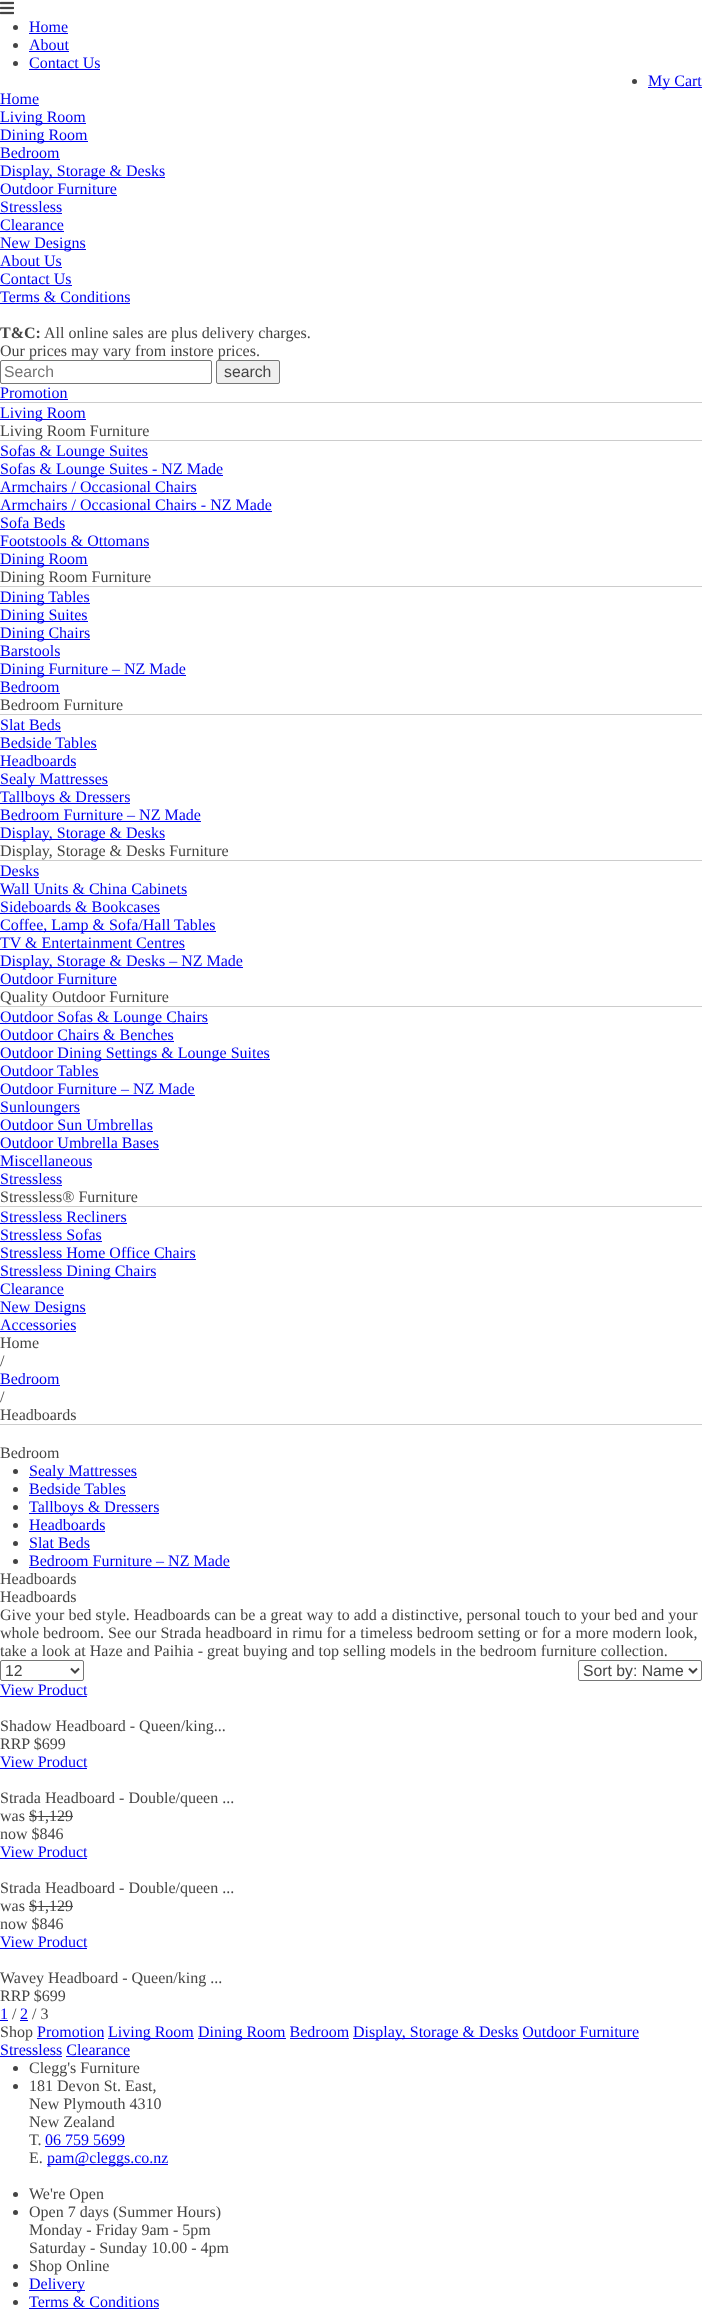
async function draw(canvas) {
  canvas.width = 702
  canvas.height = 2317
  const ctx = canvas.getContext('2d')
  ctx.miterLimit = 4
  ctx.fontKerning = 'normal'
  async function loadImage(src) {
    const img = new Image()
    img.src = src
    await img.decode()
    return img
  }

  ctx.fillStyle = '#fff'
  ctx.fillRect(0, 0, 702, 2317)
  ctx.drawImage(await loadImage('image0.png'), 0, 1, 14, 14)
  ctx.fillStyle = '#444'
  ctx.beginPath()
  ctx.arc(15.5, 27.5, 2.5, 0, 2 * Math.PI)
  ctx.fill()
  ctx.font = '16px Liberation Serif'
  ctx.fillStyle = '#00e'
  ctx.fillText('Home', 29, 32)
  ctx.fillRect(29, 33, 39, 1)
  ctx.fillStyle = '#444'
  ctx.beginPath()
  ctx.arc(15.5, 45.5, 2.5, 0, 2 * Math.PI)
  ctx.fill()
  ctx.fillStyle = '#00e'
  ctx.fillText('About', 29, 50)
  ctx.fillRect(29, 51, 40, 1)
  ctx.fillStyle = '#444'
  ctx.beginPath()
  ctx.arc(15.5, 63.5, 2.5, 0, 2 * Math.PI)
  ctx.fill()
  ctx.fillStyle = '#00e'
  ctx.fillText('Contact Us', 29, 68)
  ctx.fillRect(29, 69, 71, 1)
  ctx.fillStyle = '#444'
  ctx.beginPath()
  ctx.arc(634.5, 81.5, 2.5, 0, 2 * Math.PI)
  ctx.fill()
  ctx.fillStyle = '#00e'
  ctx.fillRect(648, 87, 54, 1)
  ctx.fillText('My Cart', 648, 86)
  ctx.fillText('Home', 0, 104)
  ctx.fillRect(0, 105, 39, 1)
  ctx.fillRect(0, 123, 86, 1)
  ctx.fillText('Living Room', 0, 122)
  ctx.fillRect(0, 141, 88, 1)
  ctx.fillText('Dining Room', 0, 140)
  ctx.fillText('Bedroom', 0, 158)
  ctx.fillRect(0, 159, 60, 1)
  ctx.fillRect(0, 177, 165, 1)
  ctx.fillText('Display, Storage & Desks', 0, 176)
  ctx.fillText('Outdoor Furniture', 0, 194)
  ctx.fillRect(0, 195, 117, 1)
  ctx.fillText('Stressless', 0, 212)
  ctx.fillRect(0, 213, 62, 1)
  ctx.fillText('Clearance', 0, 230)
  ctx.fillRect(0, 231, 64, 1)
  ctx.fillRect(0, 249, 86, 1)
  ctx.fillText('New Designs', 0, 248)
  ctx.fillText('About Us', 0, 266)
  ctx.fillRect(0, 267, 62, 1)
  ctx.fillText('Contact Us', 0, 284)
  ctx.fillRect(0, 285, 72, 1)
  ctx.fillText('Terms & Conditions', 0, 302)
  ctx.fillRect(0, 303, 130, 1)
  ctx.font = 'bold 16px Liberation Serif'
  ctx.fillStyle = '#444'
  ctx.fillText('T&C:', 0, 338)
  ctx.font = '16px Liberation Serif'
  ctx.fillText('All online sales are plus delivery charges.', 44, 338)
  ctx.fillText('Our prices may vary from instore prices.', 0, 356)
  ctx.beginPath()
  ctx.roundRect(0.5, 360.5, 211, 23, 1.5)
  ctx.strokeStyle = '#767676'
  ctx.stroke()
  ctx.font = '15.75px Liberation Sans'
  ctx.fillStyle = '#757575'
  ctx.fillText('Search', 4, 377)
  ctx.fillStyle = '#efefef'
  ctx.beginPath()
  ctx.roundRect(216.5, 360.5, 63, 23, 1.5)
  ctx.fill()
  ctx.stroke()
  ctx.fillStyle = '#444'
  ctx.fillText('search', 224, 377)
  ctx.font = '16px Liberation Serif'
  ctx.fillStyle = '#00e'
  ctx.fillText('Promotion', 0, 398)
  ctx.fillRect(0, 399, 68, 1)
  ctx.fillStyle = '#ccc'
  ctx.fillRect(0, 402, 702, 1)
  ctx.fillStyle = '#00e'
  ctx.fillRect(0, 419, 86, 1)
  ctx.fillText('Living Room', 0, 418)
  ctx.fillStyle = '#444'
  ctx.fillText('Living Room Furniture', 0, 436)
  ctx.fillStyle = '#ccc'
  ctx.fillRect(0, 440, 702, 1)
  ctx.fillStyle = '#00e'
  ctx.fillRect(0, 457, 148, 1)
  ctx.fillText('Sofas & Lounge Suites', 0, 456)
  ctx.fillRect(0, 475, 223, 1)
  ctx.fillText('Sofas & Lounge Suites - NZ Made', 0, 474)
  ctx.fillText('Armchairs / Occasional Chairs', 0, 492)
  ctx.fillRect(0, 493, 197, 1)
  ctx.fillText('Armchairs / Occasional Chairs - NZ Made', 0, 510)
  ctx.fillRect(0, 511, 272, 1)
  ctx.fillText('Sofa Beds', 0, 528)
  ctx.fillRect(0, 529, 65, 1)
  ctx.fillText('Footstools & Ottomans', 0, 546)
  ctx.fillRect(0, 547, 149, 1)
  ctx.fillRect(0, 565, 88, 1)
  ctx.fillText('Dining Room', 0, 564)
  ctx.fillStyle = '#444'
  ctx.fillText('Dining Room Furniture', 0, 582)
  ctx.fillStyle = '#ccc'
  ctx.fillRect(0, 586, 702, 1)
  ctx.fillStyle = '#00e'
  ctx.fillRect(0, 603, 90, 1)
  ctx.fillText('Dining Tables', 0, 602)
  ctx.fillRect(0, 621, 88, 1)
  ctx.fillText('Dining Suites', 0, 620)
  ctx.fillRect(0, 639, 90, 1)
  ctx.fillText('Dining Chairs', 0, 638)
  ctx.fillText('Barstools', 0, 656)
  ctx.fillRect(0, 657, 60, 1)
  ctx.fillRect(0, 675, 186, 1)
  ctx.fillText('Dining Furniture – NZ Made', 0, 674)
  ctx.fillText('Bedroom', 0, 692)
  ctx.fillRect(0, 693, 60, 1)
  ctx.fillStyle = '#444'
  ctx.fillText('Bedroom Furniture', 0, 710)
  ctx.fillStyle = '#ccc'
  ctx.fillRect(0, 714, 702, 1)
  ctx.fillStyle = '#00e'
  ctx.fillText('Slat Beds', 0, 730)
  ctx.fillRect(0, 731, 61, 1)
  ctx.fillText('Bedside Tables', 0, 748)
  ctx.fillRect(0, 749, 97, 1)
  ctx.fillText('Headboards', 0, 766)
  ctx.fillRect(0, 767, 76, 1)
  ctx.fillRect(0, 785, 108, 1)
  ctx.fillText('Sealy Mattresses', 0, 784)
  ctx.fillRect(0, 803, 130, 1)
  ctx.fillText('Tallboys & Dressers', 0, 802)
  ctx.fillText('Bedroom Furniture – NZ Made', 0, 820)
  ctx.fillRect(0, 821, 201, 1)
  ctx.fillRect(0, 839, 165, 1)
  ctx.fillText('Display, Storage & Desks', 0, 838)
  ctx.fillStyle = '#444'
  ctx.fillText('Display, Storage & Desks Furniture', 0, 856)
  ctx.fillStyle = '#ccc'
  ctx.fillRect(0, 860, 702, 1)
  ctx.fillStyle = '#00e'
  ctx.fillText('Desks', 0, 876)
  ctx.fillRect(0, 877, 39, 1)
  ctx.fillText('Wall Units & China Cabinets', 0, 894)
  ctx.fillRect(0, 895, 187, 1)
  ctx.fillText('Sideboards & Bookcases', 0, 912)
  ctx.fillRect(0, 913, 160, 1)
  ctx.fillRect(0, 931, 216, 1)
  ctx.fillText('Coffee, Lamp & Sofa/Hall Tables', 0, 930)
  ctx.fillText('TV & Entertainment Centres', 0, 948)
  ctx.fillRect(0, 949, 185, 1)
  ctx.fillRect(0, 967, 243, 1)
  ctx.fillText('Display, Storage & Desks – NZ Made', 0, 966)
  ctx.fillText('Outdoor Furniture', 0, 984)
  ctx.fillRect(0, 985, 117, 1)
  ctx.fillStyle = '#444'
  ctx.fillText('Quality Outdoor Furniture', 0, 1002)
  ctx.fillStyle = '#ccc'
  ctx.fillRect(0, 1006, 702, 1)
  ctx.fillStyle = '#00e'
  ctx.fillRect(0, 1023, 208, 1)
  ctx.fillText('Outdoor Sofas & Lounge Chairs', 0, 1022)
  ctx.fillText('Outdoor Chairs & Benches', 0, 1040)
  ctx.fillRect(0, 1041, 174, 1)
  ctx.fillRect(0, 1059, 270, 1)
  ctx.fillText('Outdoor Dining Settings & Lounge Suites', 0, 1058)
  ctx.fillText('Outdoor Tables', 0, 1076)
  ctx.fillRect(0, 1077, 99, 1)
  ctx.fillText('Outdoor Furniture – NZ Made', 0, 1094)
  ctx.fillRect(0, 1095, 195, 1)
  ctx.fillRect(0, 1113, 80, 1)
  ctx.fillText('Sunloungers', 0, 1112)
  ctx.fillText('Outdoor Sun Umbrellas', 0, 1130)
  ctx.fillRect(0, 1131, 153, 1)
  ctx.fillText('Outdoor Umbrella Bases', 0, 1148)
  ctx.fillRect(0, 1149, 159, 1)
  ctx.fillText('Miscellaneous', 0, 1166)
  ctx.fillRect(0, 1167, 92, 1)
  ctx.fillText('Stressless', 0, 1184)
  ctx.fillRect(0, 1185, 62, 1)
  ctx.fillStyle = '#444'
  ctx.fillText('Stressless® Furniture', 0, 1202)
  ctx.fillStyle = '#ccc'
  ctx.fillRect(0, 1206, 702, 1)
  ctx.fillStyle = '#00e'
  ctx.fillText('Stressless Recliners', 0, 1222)
  ctx.fillRect(0, 1223, 127, 1)
  ctx.fillText('Stressless Sofas', 0, 1240)
  ctx.fillRect(0, 1241, 102, 1)
  ctx.fillText('Stressless Home Office Chairs', 0, 1258)
  ctx.fillRect(0, 1259, 196, 1)
  ctx.fillRect(0, 1277, 156, 1)
  ctx.fillText('Stressless Dining Chairs', 0, 1276)
  ctx.fillText('Clearance', 0, 1294)
  ctx.fillRect(0, 1295, 64, 1)
  ctx.fillRect(0, 1313, 86, 1)
  ctx.fillText('New Designs', 0, 1312)
  ctx.fillText('Accessories', 0, 1330)
  ctx.fillRect(0, 1331, 76, 1)
  ctx.fillStyle = '#444'
  ctx.fillText('Home', 0, 1348)
  ctx.fillText('/', 0, 1366)
  ctx.fillStyle = '#00e'
  ctx.fillText('Bedroom', 0, 1384)
  ctx.fillRect(0, 1385, 60, 1)
  ctx.fillStyle = '#444'
  ctx.fillText('/', 0, 1402)
  ctx.fillText('Headboards', 0, 1420)
  ctx.fillStyle = '#ccc'
  ctx.fillRect(0, 1424, 702, 1)
  ctx.fillStyle = '#444'
  ctx.fillText('Bedroom', 0, 1458)
  ctx.beginPath()
  ctx.arc(15.5, 1471.5, 2.5, 0, 2 * Math.PI)
  ctx.fill()
  ctx.fillStyle = '#00e'
  ctx.fillRect(29, 1477, 108, 1)
  ctx.fillText('Sealy Mattresses', 29, 1476)
  ctx.fillStyle = '#444'
  ctx.beginPath()
  ctx.arc(15.5, 1489.5, 2.5, 0, 2 * Math.PI)
  ctx.fill()
  ctx.fillStyle = '#00e'
  ctx.fillText('Bedside Tables', 29, 1494)
  ctx.fillRect(29, 1495, 97, 1)
  ctx.fillStyle = '#444'
  ctx.beginPath()
  ctx.arc(15.5, 1507.5, 2.5, 0, 2 * Math.PI)
  ctx.fill()
  ctx.fillStyle = '#00e'
  ctx.fillRect(29, 1513, 130, 1)
  ctx.fillText('Tallboys & Dressers', 29, 1512)
  ctx.fillStyle = '#444'
  ctx.beginPath()
  ctx.arc(15.5, 1525.5, 2.5, 0, 2 * Math.PI)
  ctx.fill()
  ctx.fillStyle = '#00e'
  ctx.fillText('Headboards', 29, 1530)
  ctx.fillRect(29, 1531, 76, 1)
  ctx.fillStyle = '#444'
  ctx.beginPath()
  ctx.arc(15.5, 1543.5, 2.5, 0, 2 * Math.PI)
  ctx.fill()
  ctx.fillStyle = '#00e'
  ctx.fillText('Slat Beds', 29, 1548)
  ctx.fillRect(29, 1549, 61, 1)
  ctx.fillStyle = '#444'
  ctx.beginPath()
  ctx.arc(15.5, 1561.5, 2.5, 0, 2 * Math.PI)
  ctx.fill()
  ctx.fillStyle = '#00e'
  ctx.fillText('Bedroom Furniture – NZ Made', 29, 1566)
  ctx.fillRect(29, 1567, 201, 1)
  ctx.fillStyle = '#444'
  ctx.fillText('Headboards', 0, 1584)
  ctx.fillText('Headboards', 0, 1602)
  ctx.fillText('Give your bed style. Headboards can be a great way to add a distinctive, personal touch to your bed and your', 0, 1620)
  ctx.fillText('whole bedroom. See our Strada headboard in rimu for a timeless bedroom setting or for a more modern look,', 0, 1638)
  ctx.fillText('take a look at Haze and Paihia - great buying and top selling models in the bedroom furniture collection.', 0, 1656)
  ctx.beginPath()
  ctx.roundRect(0.5, 1660.5, 83, 20, 1.5)
  ctx.stroke()
  ctx.beginPath()
  ctx.moveTo(71, 1668.5)
  ctx.lineTo(75, 1672.5)
  ctx.lineTo(79, 1668.5)
  ctx.strokeStyle = '#444'
  ctx.lineWidth = 2
  ctx.stroke()
  ctx.font = '15.75px Liberation Sans'
  ctx.fillText('12', 5, 1676)
  ctx.beginPath()
  ctx.roundRect(578.5, 1660.5, 123, 20, 1.5)
  ctx.strokeStyle = '#767676'
  ctx.lineWidth = 1
  ctx.stroke()
  ctx.beginPath()
  ctx.moveTo(689, 1668.5)
  ctx.lineTo(693, 1672.5)
  ctx.lineTo(697, 1668.5)
  ctx.strokeStyle = '#444'
  ctx.lineWidth = 2
  ctx.stroke()
  ctx.fillText('Sort by: Name', 583, 1676)
  ctx.font = '16px Liberation Serif'
  ctx.fillStyle = '#00e'
  ctx.fillText('View Product', 0, 1695)
  ctx.fillRect(0, 1696, 87, 1)
  ctx.fillStyle = '#444'
  ctx.fillText('Shadow Headboard - Queen/king...', 0, 1731)
  ctx.fillText('RRP $699', 0, 1749)
  ctx.fillStyle = '#00e'
  ctx.fillText('View Product', 0, 1767)
  ctx.fillRect(0, 1768, 87, 1)
  ctx.fillStyle = '#444'
  ctx.fillText('Strada Headboard - Double/queen ...', 0, 1803)
  ctx.fillText('was $1,129', 0, 1821)
  ctx.fillRect(29, 1816, 44, 1)
  ctx.fillText('now $846', 0, 1839)
  ctx.fillStyle = '#00e'
  ctx.fillText('View Product', 0, 1857)
  ctx.fillRect(0, 1858, 87, 1)
  ctx.fillStyle = '#444'
  ctx.fillText('Strada Headboard - Double/queen ...', 0, 1893)
  ctx.fillText('was $1,129', 0, 1911)
  ctx.fillRect(29, 1906, 44, 1)
  ctx.fillText('now $846', 0, 1929)
  ctx.fillStyle = '#00e'
  ctx.fillText('View Product', 0, 1947)
  ctx.fillRect(0, 1948, 87, 1)
  ctx.fillStyle = '#444'
  ctx.fillText('Wavey Headboard - Queen/king ...', 0, 1983)
  ctx.fillText('RRP $699', 0, 2001)
  ctx.fillStyle = '#00e'
  ctx.fillText('1', 0, 2019)
  ctx.fillRect(0, 2020, 8, 1)
  ctx.fillStyle = '#444'
  ctx.fillText('/', 12, 2019)
  ctx.fillStyle = '#00e'
  ctx.fillText('2', 20, 2019)
  ctx.fillRect(20, 2020, 8, 1)
  ctx.fillStyle = '#444'
  ctx.fillText('/ 3', 32, 2019)
  ctx.fillText('Shop', 0, 2037)
  ctx.fillStyle = '#00e'
  ctx.fillText('Promotion', 37, 2037)
  ctx.fillRect(37, 2038, 67, 1)
  ctx.fillRect(108, 2038, 86, 1)
  ctx.fillText('Living Room', 108, 2037)
  ctx.fillRect(198, 2038, 88, 1)
  ctx.fillText('Dining Room Bedroom', 198, 2037)
  ctx.fillRect(290, 2038, 59, 1)
  ctx.fillRect(353, 2038, 166, 1)
  ctx.fillText('Display, Storage & Desks Outdoor Furniture', 353, 2037)
  ctx.fillRect(523, 2038, 116, 1)
  ctx.fillText('Stressless Clearance', 0, 2055)
  ctx.fillRect(0, 2056, 62, 1)
  ctx.fillRect(66, 2056, 64, 1)
  ctx.fillStyle = '#444'
  ctx.beginPath()
  ctx.arc(15.5, 2068.5, 2.5, 0, 2 * Math.PI)
  ctx.fill()
  ctx.fillText('Clegg\'s Furniture', 29, 2073)
  ctx.beginPath()
  ctx.arc(15.5, 2086.5, 2.5, 0, 2 * Math.PI)
  ctx.fill()
  ctx.fillText('181 Devon St. East,', 29, 2091)
  ctx.fillText('New Plymouth 4310', 29, 2109)
  ctx.fillText('New Zealand', 29, 2127)
  ctx.fillText('T.', 29, 2145)
  ctx.fillStyle = '#00e'
  ctx.fillText('06 759 5699', 45, 2145)
  ctx.fillRect(45, 2146, 80, 1)
  ctx.fillStyle = '#444'
  ctx.fillText('E.', 29, 2163)
  ctx.fillStyle = '#00e'
  ctx.fillRect(47, 2164, 121, 1)
  ctx.fillText('pam@cleggs.co.nz', 47, 2163)
  ctx.fillStyle = '#444'
  ctx.beginPath()
  ctx.arc(15.5, 2194.5, 2.5, 0, 2 * Math.PI)
  ctx.fill()
  ctx.fillText('We\'re Open', 29, 2199)
  ctx.beginPath()
  ctx.arc(15.5, 2212.5, 2.5, 0, 2 * Math.PI)
  ctx.fill()
  ctx.fillText('Open 7 days (Summer Hours)', 29, 2217)
  ctx.fillText('Monday - Friday 9am - 5pm', 29, 2235)
  ctx.fillText('Saturday - Sunday 10.00 - 4pm', 29, 2253)
  ctx.beginPath()
  ctx.arc(15.5, 2266.5, 2.5, 0, 2 * Math.PI)
  ctx.fill()
  ctx.fillText('Shop Online', 29, 2271)
  ctx.beginPath()
  ctx.arc(15.5, 2284.5, 2.5, 0, 2 * Math.PI)
  ctx.fill()
  ctx.fillStyle = '#00e'
  ctx.fillRect(29, 2290, 56, 1)
  ctx.fillText('Delivery', 29, 2289)
  ctx.fillStyle = '#444'
  ctx.beginPath()
  ctx.arc(15.5, 2302.5, 2.5, 0, 2 * Math.PI)
  ctx.fill()
  ctx.fillStyle = '#00e'
  ctx.fillText('Terms & Conditions', 29, 2307)
  ctx.fillRect(29, 2308, 130, 1)
}

draw(document.querySelector('canvas'))
